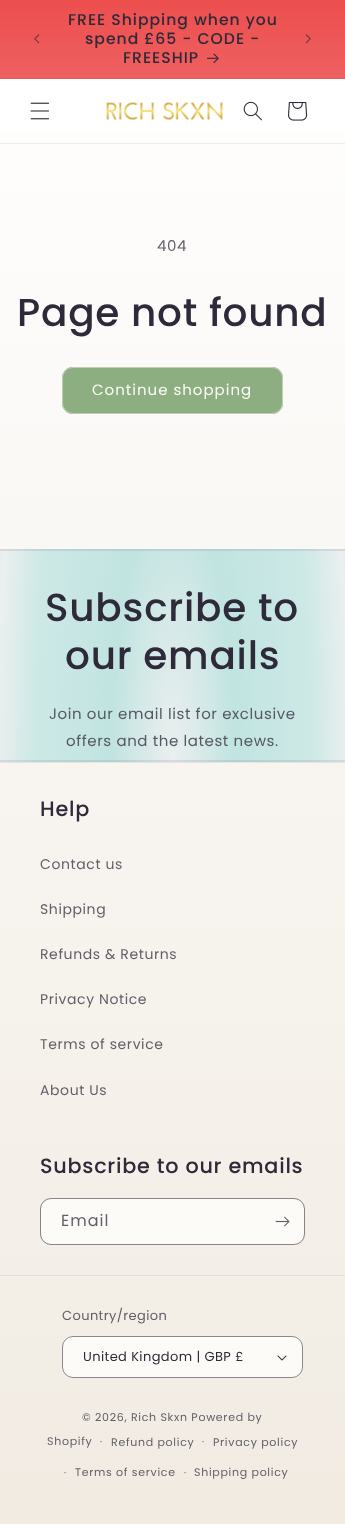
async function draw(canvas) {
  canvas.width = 345
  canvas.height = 1524
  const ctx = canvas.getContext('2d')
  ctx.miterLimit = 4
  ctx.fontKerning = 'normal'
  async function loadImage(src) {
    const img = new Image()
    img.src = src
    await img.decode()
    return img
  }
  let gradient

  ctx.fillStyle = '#fff'
  ctx.fillRect(0, 0, 345, 1524)
  gradient = ctx.createLinearGradient(172, 0, 173, 1524)
  gradient.addColorStop(0, '#fff')
  gradient.addColorStop(1, '#f1ebe2')
  ctx.fillStyle = gradient
  ctx.fillRect(0, 131, 345, 1393)
  gradient = ctx.createLinearGradient(173, 1524, 173, 0)
  gradient.addColorStop(0.22, '#ed6f56')
  gradient.addColorStop(0.5, '#fff')
  gradient.addColorStop(1, '#ed4e4e')
  gradient.addColorStop(1, '#f1ebe2')
  ctx.fillStyle = gradient
  ctx.fillRect(0, 0, 345, 78)
  ctx.fillStyle = '#e05c5d'
  ctx.fillRect(0, 78, 345, 1)
  ctx.drawImage(await loadImage('image0.png'), 34, 34, 6, 10)
  ctx.letterSpacing = '1px'
  ctx.font = '500 15.6px Poppins'
  ctx.fillStyle = '#2e2a39'
  ctx.fillText('FREE Shipping when you', 68, 25)
  ctx.fillText('spend £65 - CODE -', 85, 44)
  ctx.fillText('FREESHIP', 123, 63)
  ctx.drawImage(await loadImage('image1.png'), 207, 53, 12, 10)
  ctx.drawImage(await loadImage('image2.png'), 305, 34, 6, 10)
  ctx.fillStyle = '#edecec'
  ctx.fillRect(0, 143, 345, 1)
  ctx.drawImage(await loadImage('image3.png'), 30, 102, 20, 18)
  ctx.drawImage(await loadImage('image4.png'), 106, 101, 117, 20)
  ctx.drawImage(await loadImage('image5.png'), 243, 101, 19, 20)
  ctx.drawImage(await loadImage('image6.png'), 288, 102, 20, 19)
  ctx.letterSpacing = '0.6px'
  ctx.font = '15px Poppins'
  ctx.fillStyle = '#625f69'
  ctx.fillText('404', 157, 251)
  ctx.letterSpacing = '0.75px'
  ctx.font = '500 39px Poppins'
  ctx.fillStyle = '#2e2a39'
  ctx.fillText('Page not found', 17, 326)
  ctx.fillStyle = '#8dae81'
  ctx.beginPath()
  ctx.roundRect(62, 367, 221, 47, 11)
  ctx.fill()
  ctx.beginPath()
  ctx.roundRect(62.5, 367.5, 220, 46, 10.5)
  ctx.strokeStyle = '#8dae81'
  ctx.stroke()
  ctx.beginPath()
  ctx.roundRect(62.5, 367.5, 220, 46, 10.5)
  ctx.strokeStyle = '#fdfbf773'
  ctx.stroke()
  ctx.letterSpacing = '1px'
  ctx.font = '15px Poppins'
  ctx.fillStyle = '#fdfbf7'
  ctx.fillText('Continue shopping', 92, 395)
  gradient = ctx.createRadialGradient(173, 172.47, 0, 173, 172.47, 244)
  gradient.addColorStop(0, '#ebefeffc')
  gradient.addColorStop(0.25, '#c1e4e1')
  gradient.addColorStop(0.57, '#cde9e6')
  gradient.addColorStop(0.72, '#ebefeffc')
  gradient.addColorStop(0.91, '#cbbcdcfc')
  gradient.addColorStop(1, '#cbbcdcfc')
  ctx.fillStyle = gradient
  ctx.beginPath()
  ctx.rect(0, 549, 345, 213)
  ctx.save()
  ctx.clip()
  ctx.scale(1, 1078 / 244)
  ctx.fillRect(0, 0, 345, 345)
  ctx.restore()
  ctx.fillStyle = '#2e2a391a'
  ctx.fillRect(0, 549, 345, 2)
  ctx.fillRect(0, 760, 345, 2)
  ctx.letterSpacing = '0.75px'
  ctx.font = '500 39px Poppins'
  ctx.fillStyle = '#2e2a39'
  ctx.fillText('Subscribe to', 45, 621)
  ctx.fillText('our emails', 65, 669)
  ctx.letterSpacing = '0.6px'
  ctx.font = '15px Poppins'
  ctx.fillStyle = '#565964'
  ctx.fillText('Join our email list for exclusive', 49, 719)
  ctx.fillText('offers and the latest news.', 66, 746)
  ctx.fillStyle = '#e8e5e1'
  ctx.fillRect(0, 762, 345, 1)
  ctx.letterSpacing = '0.75px'
  ctx.font = '500 20.75px Poppins'
  ctx.fillStyle = '#2e2a39'
  ctx.fillText('Help', 40, 816)
  ctx.letterSpacing = '0.6px'
  ctx.font = '14px Poppins'
  ctx.fillStyle = '#625f69'
  ctx.fillText('Contact us', 40, 869)
  ctx.fillText('Shipping', 40, 914)
  ctx.fillText('Refunds & Returns', 40, 959)
  ctx.fillText('Privacy Notice', 40, 1004)
  ctx.fillText('Terms of service', 40, 1049)
  ctx.fillText('About Us', 40, 1095)
  ctx.letterSpacing = '0.75px'
  ctx.font = '500 20.75px Poppins'
  ctx.fillStyle = '#2e2a39'
  ctx.fillText('Subscribe to our emails', 40, 1173)
  ctx.fillStyle = '#fdfbf7'
  ctx.beginPath()
  ctx.roundRect(41, 1199, 263, 45, 10)
  ctx.fill()
  ctx.beginPath()
  ctx.roundRect(40.5, 1198.5, 264, 46, 10.5)
  ctx.strokeStyle = '#2e2a398c'
  ctx.stroke()
  ctx.letterSpacing = '1px'
  ctx.font = '16px Poppins'
  ctx.fillStyle = '#625f69'
  ctx.fillText('Email', 61, 1226)
  ctx.drawImage(await loadImage('image7.png'), 275, 1216, 15, 11)
  ctx.fillStyle = '#e3ded9'
  ctx.fillRect(0, 1275, 345, 1)
  ctx.letterSpacing = '0.4px'
  ctx.font = '13px Poppins'
  ctx.fillStyle = '#625f69'
  ctx.fillText('Country/region', 62, 1320)
  ctx.fillStyle = '#fdfbf7'
  ctx.beginPath()
  ctx.roundRect(62, 1336, 241, 42, 11)
  ctx.fill()
  ctx.drawImage(await loadImage('image8.png'), 277, 1355, 10, 6)
  ctx.beginPath()
  ctx.roundRect(62.5, 1336.5, 240, 41, 10.5)
  ctx.stroke()
  ctx.fillStyle = '#2e2a39'
  ctx.fillText('United Kingdom | GBP £', 83, 1361)
  ctx.letterSpacing = '0.7px'
  ctx.font = '11px Poppins'
  ctx.fillStyle = '#625f69'
  ctx.fillText('© 2026, Rich Skxn Powered by', 82, 1421)
  ctx.fillText('Shopify', 47, 1445)
  ctx.font = '10px Poppins'
  ctx.fillText('·', 100, 1445)
  ctx.font = '11px Poppins'
  ctx.fillText('Refund policy', 111, 1446)
  ctx.font = '10px Poppins'
  ctx.fillText('·', 202, 1445)
  ctx.font = '11px Poppins'
  ctx.fillText('Privacy policy', 213, 1446)
  ctx.font = '10px Poppins'
  ctx.fillText('·', 64, 1476)
  ctx.font = '11px Poppins'
  ctx.fillText('Terms of service', 75, 1476)
  ctx.font = '10px Poppins'
  ctx.fillText('·', 184, 1476)
  ctx.font = '11px Poppins'
  ctx.fillText('Shipping policy', 194, 1476)
}

draw(document.querySelector('canvas'))
